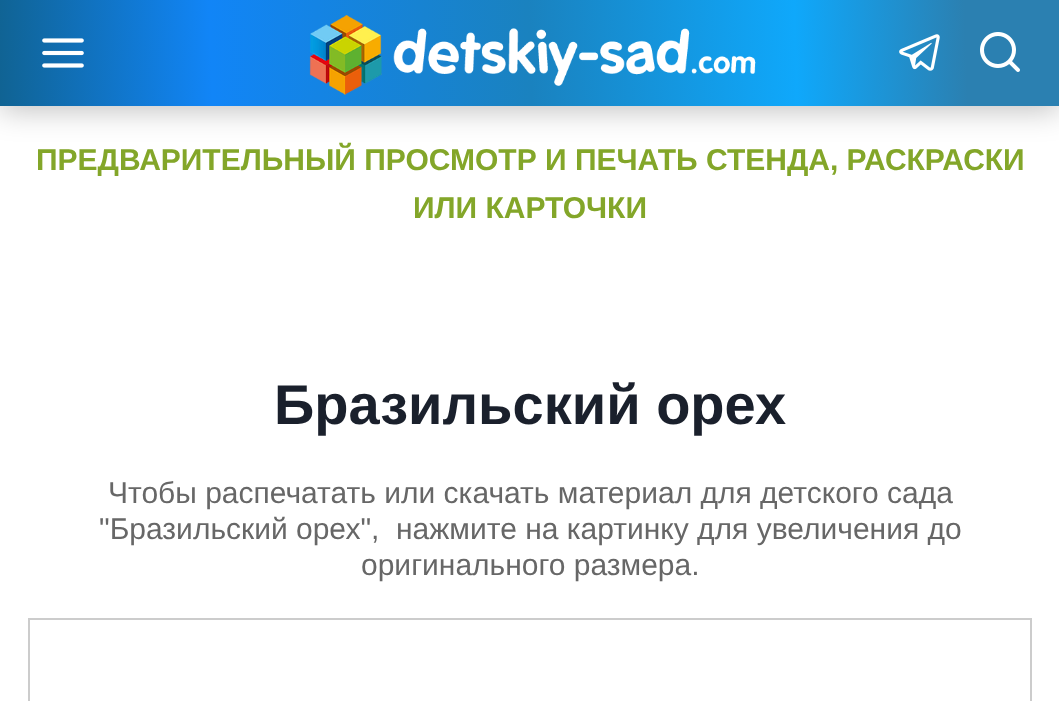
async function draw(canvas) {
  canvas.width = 1059
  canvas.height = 701
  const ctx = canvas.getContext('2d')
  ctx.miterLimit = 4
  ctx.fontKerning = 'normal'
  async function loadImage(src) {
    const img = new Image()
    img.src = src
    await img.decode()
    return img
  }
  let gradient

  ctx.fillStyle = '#fff'
  ctx.fillRect(0, 0, 1059, 701)
  ctx.fillStyle = '#00000040'
  ctx.filter = 'blur(15px)'
  ctx.beginPath()
  ctx.rect(0, 4, 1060, 106)
  ctx.fill()
  ctx.filter = 'none'
  gradient = ctx.createLinearGradient(-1.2, 72, 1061, 34)
  gradient.addColorStop(0, '#106393')
  gradient.addColorStop(0.2, '#1185f7')
  gradient.addColorStop(0.5, '#1a82bf')
  gradient.addColorStop(0.75, '#0fa8fb')
  gradient.addColorStop(0.91, '#2b80b1')
  ctx.fillStyle = gradient
  ctx.fillRect(0, 0, 1059, 106)
  ctx.drawImage(await loadImage('image0.png'), 42, 38, 42, 30)
  ctx.drawImage(await loadImage('image1.png'), 309, 15, 447, 80)
  ctx.drawImage(await loadImage('image2.png'), 899, 34, 41, 37)
  ctx.drawImage(await loadImage('image3.png'), 980, 32, 40, 40)
  ctx.font = 'bold 30px Liberation Sans'
  ctx.fillStyle = '#83a629'
  ctx.fillText('ПРЕДВАРИТЕЛЬНЫЙ ПРОСМОТР И ПЕЧАТЬ СТЕНДА, РАСКРАСКИ', 36, 170)
  ctx.fillText('ИЛИ КАРТОЧКИ', 413, 218)
  ctx.font = 'bold 56px Liberation Sans'
  ctx.fillStyle = '#1a202c'
  ctx.fillText('Бразильский орех', 274, 424)
  ctx.font = '30px Liberation Sans'
  ctx.fillStyle = '#676767'
  ctx.fillText('Чтобы распечатать или скачать материал для детского сада', 108, 503)
  ctx.fillText('"Бразильский орех",  нажмите на картинку для увеличения до', 99, 539)
  ctx.fillText('оригинального размера.', 361, 575)
  ctx.strokeStyle = '#ccc'
  ctx.lineWidth = 2
  ctx.strokeRect(29, 619, 1002, 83)
}

draw(document.querySelector('canvas'))
